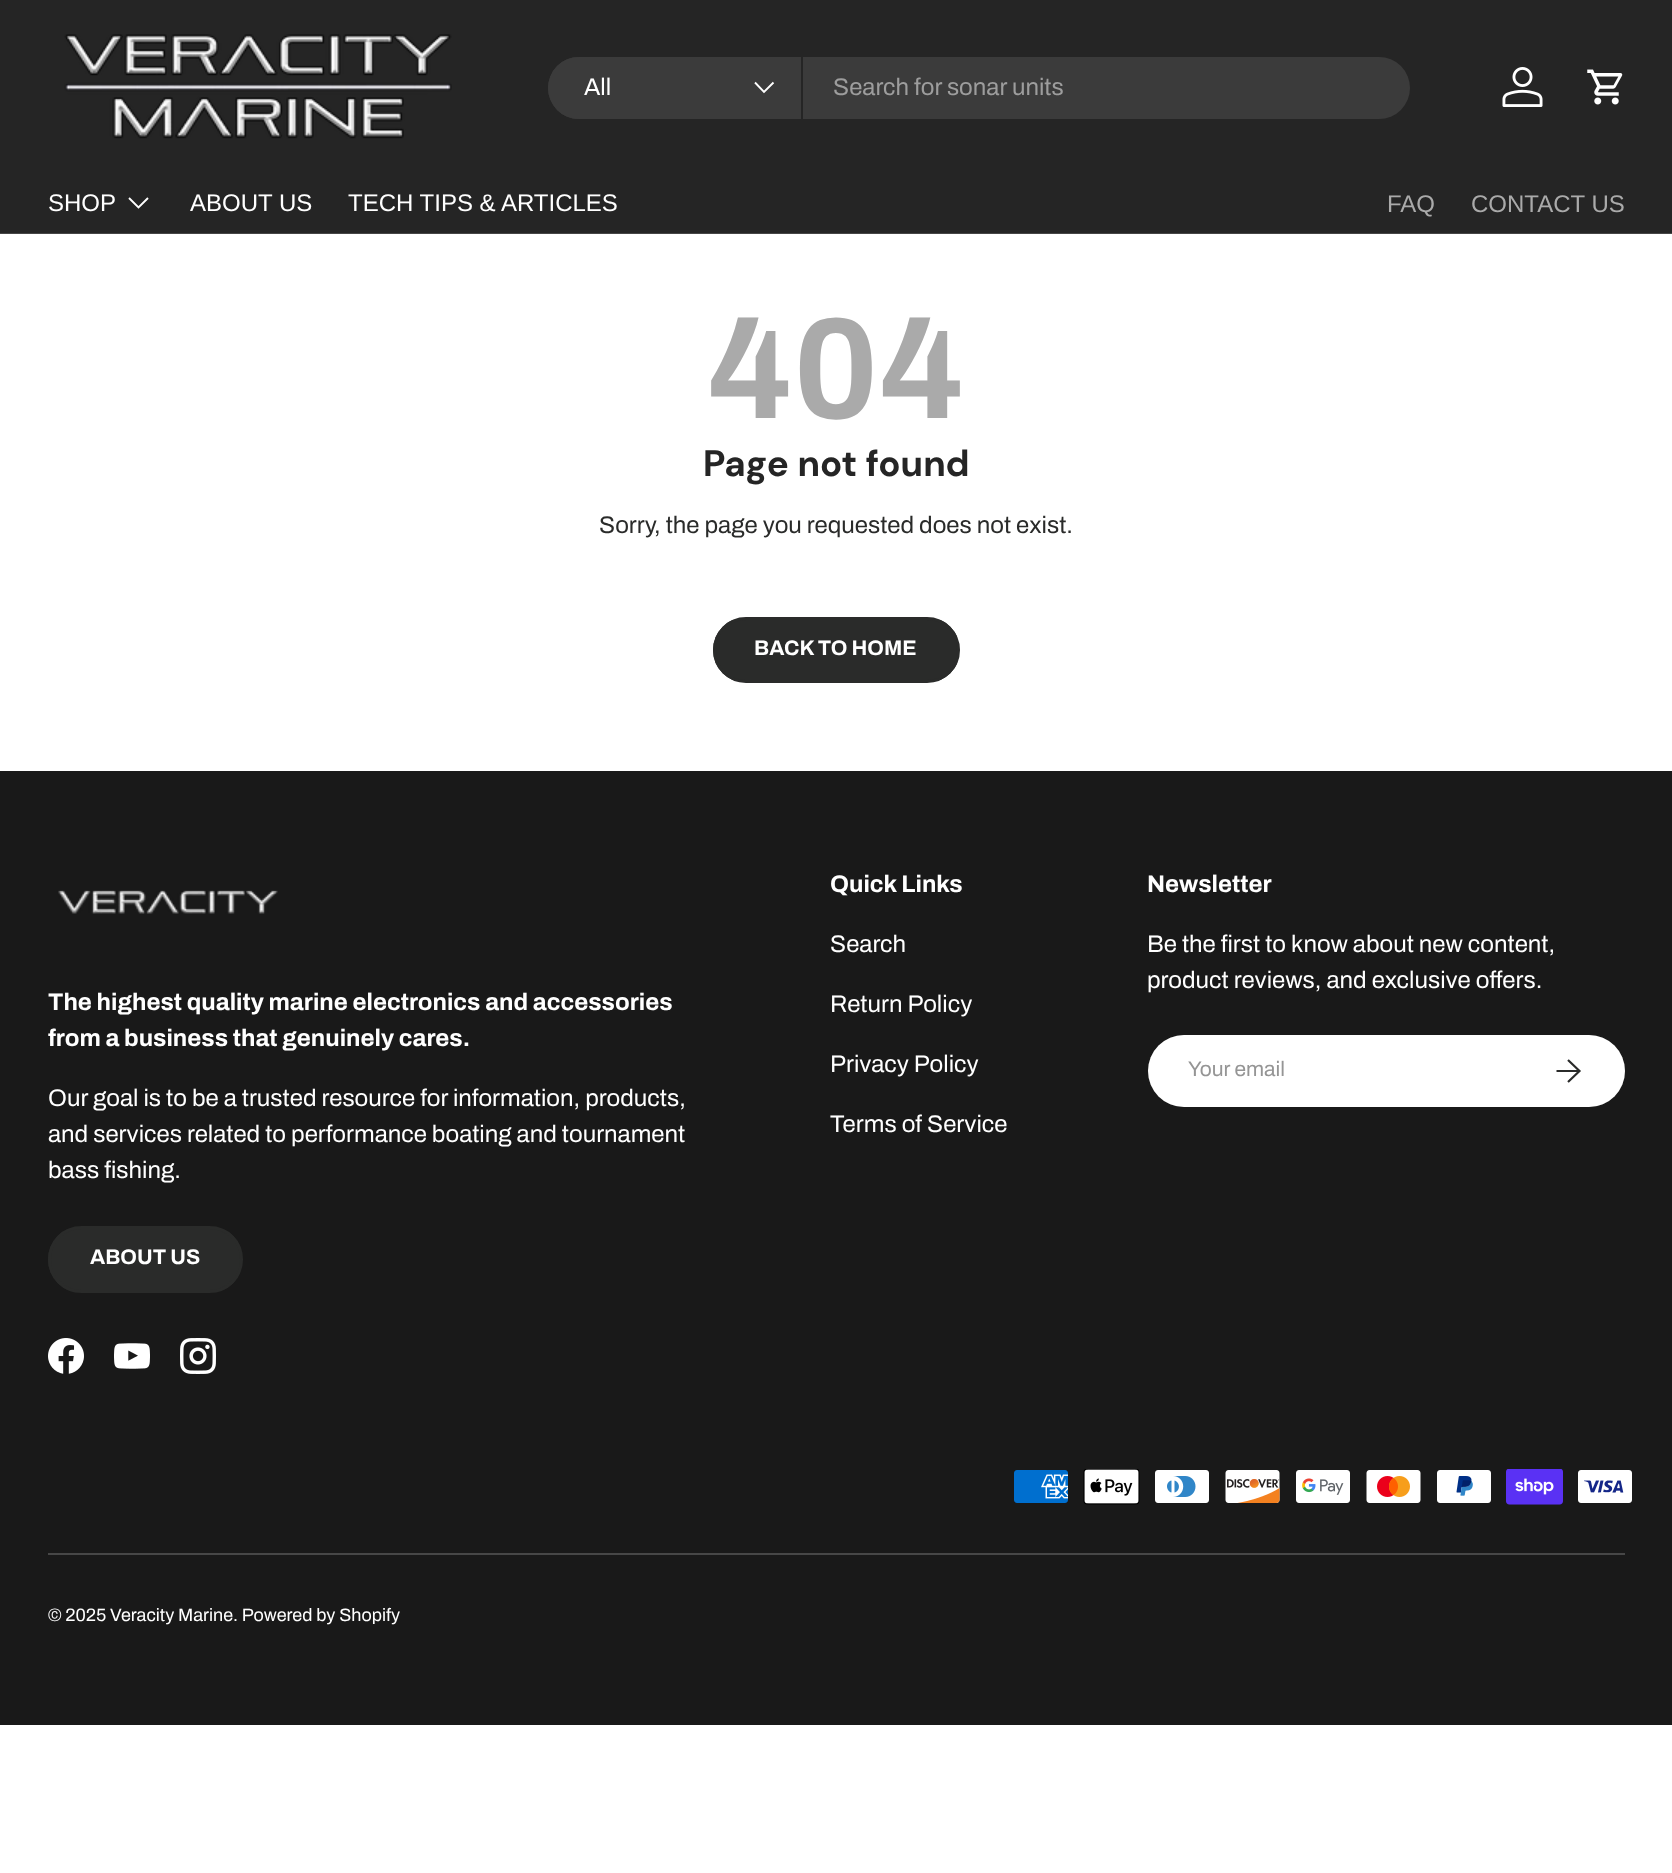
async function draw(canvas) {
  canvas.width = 1672
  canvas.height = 1873
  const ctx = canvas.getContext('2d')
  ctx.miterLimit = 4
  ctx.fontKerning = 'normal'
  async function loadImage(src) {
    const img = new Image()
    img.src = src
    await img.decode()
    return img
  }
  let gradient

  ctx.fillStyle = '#fff'
  ctx.fillRect(0, 0, 1672, 1873)
  ctx.fillStyle = '#252525'
  ctx.fillRect(0, 0, 1672, 233)
  ctx.fillStyle = '#464646'
  ctx.fillRect(0, 233, 1672, 1)
  ctx.drawImage(await loadImage('image0.png'), 64, 34, 388, 105)
  ctx.fillStyle = '#3b3b3b'
  ctx.beginPath()
  ctx.roundRect(548, 57, 862, 62, 31)
  ctx.fill()
  ctx.beginPath()
  ctx.roundRect(548, 57, 255, 62, [31, 0, 0, 31])
  ctx.fill()
  ctx.fillStyle = '#252525'
  ctx.fillRect(801, 57, 2, 62)
  ctx.font = '24px Archivo'
  ctx.fillStyle = '#fff'
  ctx.fillText('All', 584, 95)
  ctx.beginPath()
  ctx.moveTo(773.5, 82.5)
  ctx.lineTo(764, 92)
  ctx.lineTo(755, 82.5)
  ctx.strokeStyle = '#fff'
  ctx.lineWidth = 1.9
  ctx.stroke()
  ctx.fillStyle = '#9d9d9d'
  ctx.fillText('Search for sonar units', 833, 95)
  ctx.drawImage(await loadImage('image1.png'), 1502, 67, 41, 40)
  ctx.drawImage(await loadImage('image2.png'), 1587, 69, 36, 36)
  ctx.font = '24px Arimo'
  ctx.fillStyle = '#fff'
  ctx.fillText('SHOP', 48, 211)
  ctx.beginPath()
  ctx.moveTo(148, 198)
  ctx.lineTo(138.5, 207.5)
  ctx.lineTo(129, 198)
  ctx.stroke()
  ctx.fillText('ABOUT US', 190, 211)
  ctx.fillText('TECH TIPS & ARTICLES', 348, 211)
  ctx.fillStyle = '#aaa'
  ctx.fillText('FAQ', 1387, 212)
  ctx.fillText('CONTACT US', 1471, 212)
  ctx.font = 'bold 144px Archivo'
  ctx.fillText('404', 707, 418)
  ctx.font = 'bold 36.75px DM Sans'
  ctx.fillStyle = '#252525'
  ctx.fillText('Page not found', 703, 476)
  ctx.font = '24px Archivo'
  ctx.fillStyle = '#2a2b2a'
  ctx.fillText('Sorry, the page you requested does not exist.', 599, 533)
  ctx.save()
  ctx.beginPath()
  ctx.roundRect(713, 617, 247, 66, 33)
  ctx.clip()
  gradient = ctx.createLinearGradient(247, 563, 943, 736)
  gradient.addColorStop(0.6, '#525352')
  gradient.addColorStop(0.6, '#2a2b2a')
  gradient.addColorStop(1, '#2a2b2a')
  ctx.fillStyle = gradient
  ctx.fillRect(713, 620, 244, 60)
  ctx.restore()
  ctx.beginPath()
  ctx.roundRect(714.5, 618.5, 244, 63, 31.5)
  ctx.strokeStyle = '#2a2b2a'
  ctx.lineWidth = 3
  ctx.stroke()
  ctx.font = 'bold 21px Archivo'
  ctx.fillStyle = '#fff'
  ctx.fillText('BACK TO HOME', 754, 655)
  ctx.fillStyle = '#191919'
  ctx.fillRect(0, 771, 1672, 954)
  ctx.drawImage(await loadImage('image3.png'), 58, 890, 220, 24)
  ctx.font = 'bold 24px Archivo'
  ctx.fillStyle = '#fff'
  ctx.fillText('The highest quality marine electronics and accessories', 48, 1010)
  ctx.fillText('from a business that genuinely cares.', 48, 1046)
  ctx.font = '24px Archivo'
  ctx.fillText('Our goal is to be a trusted resource for information, products,', 48, 1106)
  ctx.fillText('and services related to performance boating and tournament', 48, 1142)
  ctx.fillText('bass fishing.', 48, 1178)
  ctx.save()
  ctx.beginPath()
  ctx.roundRect(48, 1226, 195, 67, 33.5)
  ctx.clip()
  gradient = ctx.createLinearGradient(-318, 1191, 231, 1328)
  gradient.addColorStop(0.6, '#525352')
  gradient.addColorStop(0.6, '#2a2b2a')
  gradient.addColorStop(1, '#2a2b2a')
  ctx.fillStyle = gradient
  ctx.fillRect(48, 1229, 192, 61)
  ctx.restore()
  ctx.beginPath()
  ctx.roundRect(49.5, 1227.5, 192, 64, 32)
  ctx.stroke()
  ctx.font = 'bold 21px Archivo'
  ctx.fillText('ABOUT US', 90, 1264)
  ctx.drawImage(await loadImage('image4.png'), 48, 1338, 36, 36)
  ctx.drawImage(await loadImage('image5.png'), 114, 1343, 36, 26)
  ctx.drawImage(await loadImage('image6.png'), 180, 1338, 36, 36)
  ctx.font = 'bold 24px Archivo'
  ctx.fillText('Quick Links', 830, 892)
  ctx.font = '24px Archivo'
  ctx.fillText('Search', 830, 952)
  ctx.fillText('Return Policy', 830, 1012)
  ctx.fillText('Privacy Policy', 830, 1072)
  ctx.fillText('Terms of Service', 830, 1132)
  ctx.font = 'bold 24px Archivo'
  ctx.fillText('Newsletter', 1147, 892)
  ctx.font = '24px Archivo'
  ctx.fillText('Be the first to know about new content,', 1147, 952)
  ctx.fillText('product reviews, and exclusive offers.', 1147, 988)
  ctx.beginPath()
  ctx.roundRect(1148, 1035, 477, 72, 36)
  ctx.fill()
  ctx.beginPath()
  ctx.roundRect(1149.5, 1036.5, 474, 69, 34.5)
  ctx.strokeStyle = '#ffffff33'
  ctx.stroke()
  ctx.font = '21px Archivo'
  ctx.fillStyle = '#959595'
  ctx.fillText('Your email', 1188, 1076)
  ctx.beginPath()
  ctx.moveTo(1556.5, 1071)
  ctx.lineTo(1578.5, 1071)
  ctx.moveTo(1568, 1060)
  ctx.lineTo(1579.5, 1071)
  ctx.lineTo(1568, 1082)
  ctx.strokeStyle = '#2a2b2a'
  ctx.lineWidth = 2.2
  ctx.stroke()
  ctx.drawImage(await loadImage('image7.png'), 1014, 1470, 54, 33)
  ctx.drawImage(await loadImage('image8.png'), 1083, 1469, 57, 36)
  ctx.drawImage(await loadImage('image9.png'), 1155, 1470, 54, 33)
  ctx.drawImage(await loadImage('image10.png'), 1225, 1470, 55, 33)
  ctx.drawImage(await loadImage('image11.png'), 1296, 1470, 54, 33)
  ctx.drawImage(await loadImage('image12.png'), 1366, 1470, 55, 33)
  ctx.drawImage(await loadImage('image13.png'), 1437, 1470, 54, 33)
  ctx.drawImage(await loadImage('image14.png'), 1506, 1469, 57, 36)
  ctx.drawImage(await loadImage('image15.png'), 1578, 1470, 54, 33)
  ctx.fillStyle = '#474747'
  ctx.fillRect(48, 1553, 1577, 2)
  ctx.font = '18px Archivo'
  ctx.fillStyle = '#fff'
  ctx.fillText('© 2025 Veracity Marine. Powered by Shopify', 48, 1621)
}

draw(document.querySelector('canvas'))
